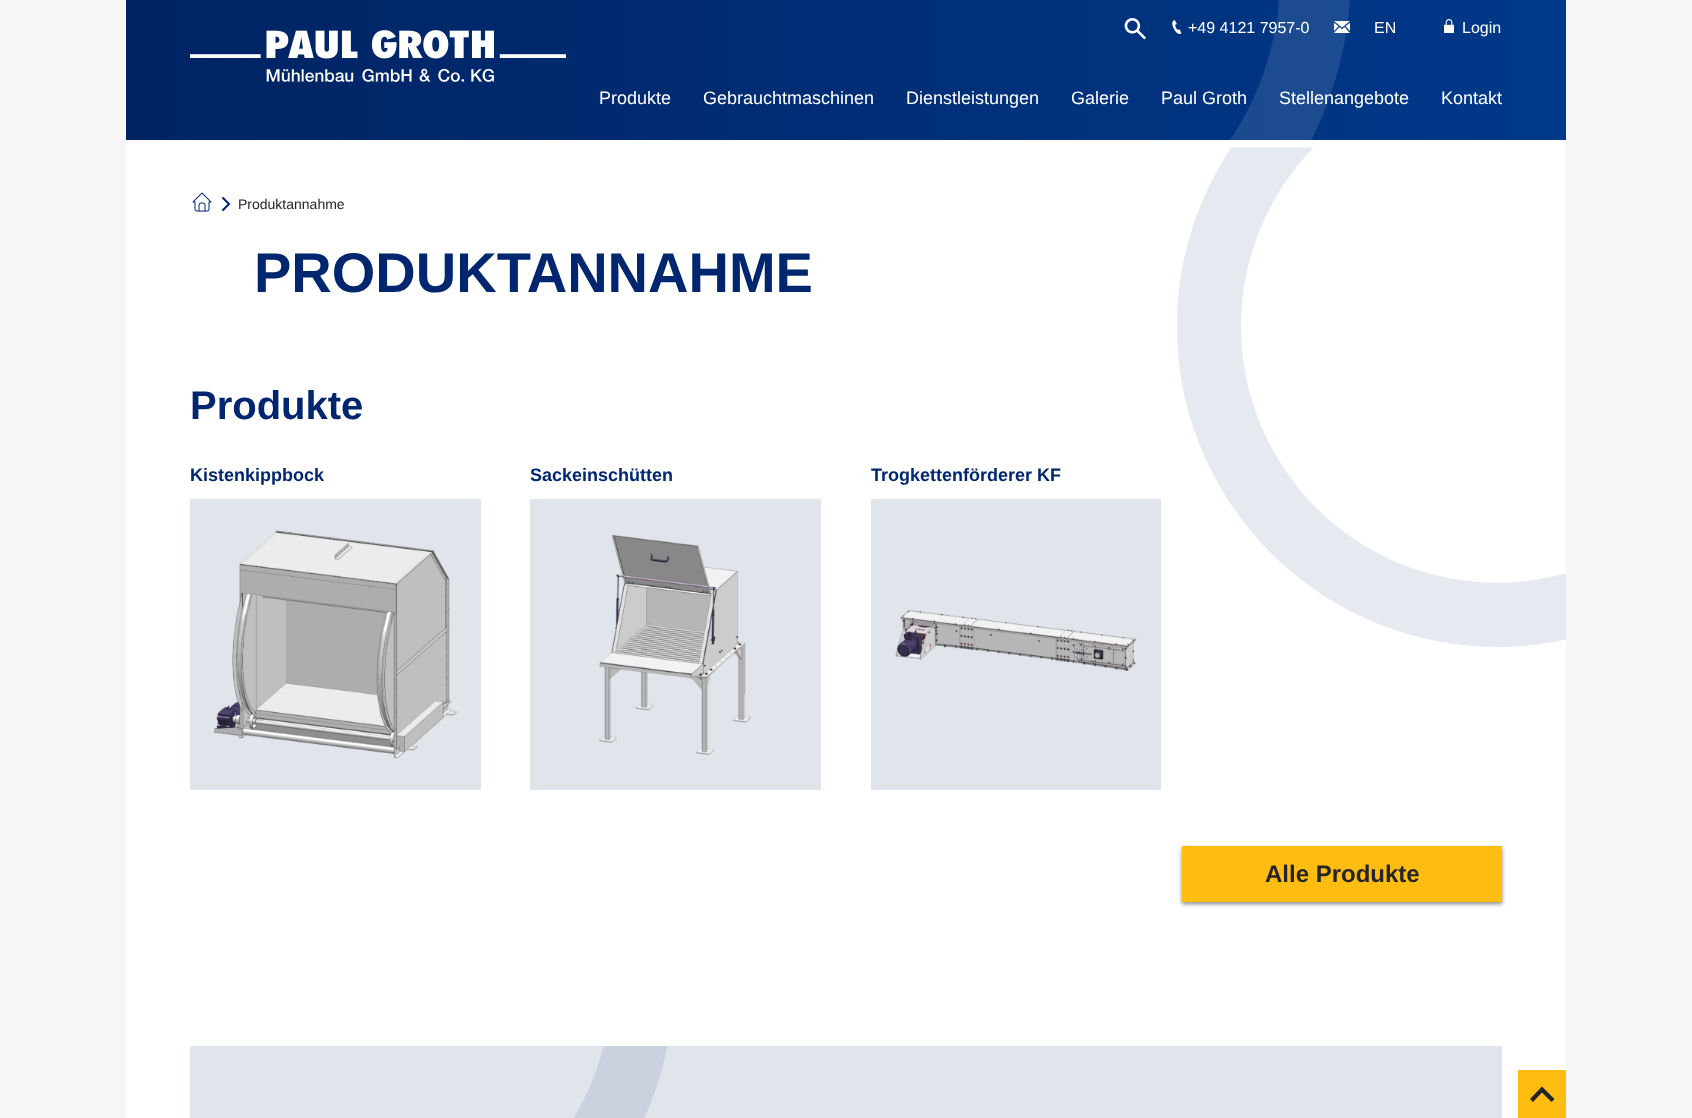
async function draw(canvas) {
  canvas.width = 1692
  canvas.height = 1118
  const ctx = canvas.getContext('2d')
  ctx.miterLimit = 4
  ctx.fontKerning = 'normal'
  async function loadImage(src) {
    const img = new Image()
    img.src = src
    await img.decode()
    return img
  }
  let gradient

  ctx.fillStyle = '#f6f6f6'
  ctx.fillRect(0, 0, 1692, 1118)
  gradient = ctx.createLinearGradient(1566, 70, 126, 70)
  gradient.addColorStop(0, '#00398a')
  gradient.addColorStop(1, '#002362')
  ctx.fillStyle = gradient
  ctx.fillRect(126, 0, 1440, 140)
  ctx.fillStyle = '#ffffff1c'
  ctx.beginPath()
  ctx.moveTo(1314, 135)
  ctx.lineTo(1311, 140)
  ctx.lineTo(1230, 140)
  ctx.bezierCurveTo(1258, 99, 1275, 50, 1279, 0)
  ctx.lineTo(1350, 0)
  ctx.bezierCurveTo(1347, 45, 1335, 91, 1314, 135)
  ctx.closePath()
  ctx.fill()
  ctx.drawImage(await loadImage('image0.png'), 190, 30, 376, 52)
  ctx.drawImage(await loadImage('image1.png'), 1124, 18, 22, 22)
  ctx.drawImage(await loadImage('image2.png'), 1172, 20, 10, 14)
  ctx.font = '16px Liberation Sans'
  ctx.fillStyle = '#fff'
  ctx.fillText('+49 4121 7957-0', 1188, 33)
  ctx.drawImage(await loadImage('image3.png'), 1334, 21, 16, 12)
  ctx.fillText('EN', 1374, 33)
  ctx.drawImage(await loadImage('image4.png'), 1444, 19, 10, 14)
  ctx.fillText('Login', 1462, 33)
  ctx.font = '18px Liberation Sans'
  ctx.fillText('Produkte', 599, 104)
  ctx.fillText('Gebrauchtmaschinen', 703, 104)
  ctx.fillText('Dienstleistungen', 906, 104)
  ctx.fillText('Galerie', 1071, 104)
  ctx.fillText('Paul Groth', 1161, 104)
  ctx.fillText('Stellenangebote', 1279, 104)
  ctx.fillText('Kontakt', 1441, 104)
  ctx.fillRect(126, 140, 1440, 978)
  ctx.drawImage(await loadImage('image5.png'), 1177, 147, 389, 500)
  ctx.drawImage(await loadImage('image6.png'), 192, 192, 20, 20)
  ctx.beginPath()
  ctx.moveTo(223, 198)
  ctx.lineTo(229, 204)
  ctx.lineTo(223, 210)
  ctx.strokeStyle = '#002670'
  ctx.lineWidth = 2
  ctx.lineCap = 'round'
  ctx.lineJoin = 'round'
  ctx.stroke()
  ctx.font = '14px Liberation Sans'
  ctx.fillStyle = '#252525'
  ctx.fillText('Produktannahme', 238, 209)
  ctx.font = 'bold 56px Liberation Sans'
  ctx.fillStyle = '#002670'
  ctx.fillText('PRODUKTANNAHME', 254, 292)
  ctx.font = 'bold 40px Liberation Sans'
  ctx.fillText('Produkte', 190, 419)
  ctx.font = 'bold 18px Liberation Sans'
  ctx.fillText('Kistenkippbock', 190, 481)
  ctx.fillStyle = '#e0e4eb'
  ctx.fillRect(190, 499, 291, 291)
  ctx.drawImage(await loadImage('image7.png'), 214, 530, 243, 229)
  ctx.fillStyle = '#002670'
  ctx.fillText('Sackeinschütten', 530, 481)
  ctx.fillStyle = '#e0e4eb'
  ctx.fillRect(530, 499, 291, 291)
  ctx.drawImage(await loadImage('image8.png'), 599, 534, 152, 222)
  ctx.fillStyle = '#002670'
  ctx.fillText('Trogkettenförderer KF', 871, 481)
  ctx.fillStyle = '#e0e4eb'
  ctx.fillRect(871, 499, 290, 291)
  ctx.drawImage(await loadImage('image9.png'), 895, 609, 242, 62)
  ctx.fillStyle = '#0000007a'
  ctx.filter = 'blur(2px)'
  ctx.beginPath()
  ctx.rect(1182, 848, 320, 56)
  ctx.fill()
  ctx.filter = 'none'
  ctx.fillStyle = '#ffbc11'
  ctx.fillRect(1182, 846, 320, 56)
  ctx.font = 'bold 24px Liberation Sans'
  ctx.fillStyle = '#252525'
  ctx.fillText('Alle Produkte', 1265, 882)
  ctx.fillStyle = '#e0e4eb'
  ctx.fillRect(190, 1046, 1312, 72)
  ctx.save()
  ctx.beginPath()
  ctx.rect(190, 1046, 478, 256)
  ctx.clip()
  ctx.fillStyle = '#cad1df'
  ctx.beginPath()
  ctx.moveTo(221, 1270)
  ctx.bezierCurveTo(157, 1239, 109, 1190, 79, 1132)
  ctx.lineTo(158, 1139)
  ctx.bezierCurveTo(181, 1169, 211, 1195, 248, 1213)
  ctx.bezierCurveTo(373, 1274, 524, 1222, 585, 1097)
  ctx.bezierCurveTo(633, 999, 611, 885, 539, 811)
  ctx.lineTo(620, 811)
  ctx.bezierCurveTo(680, 901, 692, 1020, 641, 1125)
  ctx.bezierCurveTo(565, 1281, 377, 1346, 221, 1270)
  ctx.closePath()
  ctx.fill()
  ctx.restore()
  ctx.fillStyle = '#ffbc11'
  ctx.fillRect(1518, 1070, 48, 48)
  ctx.fillStyle = '#252525'
  ctx.beginPath()
  ctx.moveTo(1554.5, 1099)
  ctx.lineTo(1551.5, 1102)
  ctx.lineTo(1542, 1092.5)
  ctx.lineTo(1533, 1102)
  ctx.lineTo(1530, 1099)
  ctx.lineTo(1542, 1086.5)
  ctx.closePath()
  ctx.fill()
}

draw(document.querySelector('canvas'))
